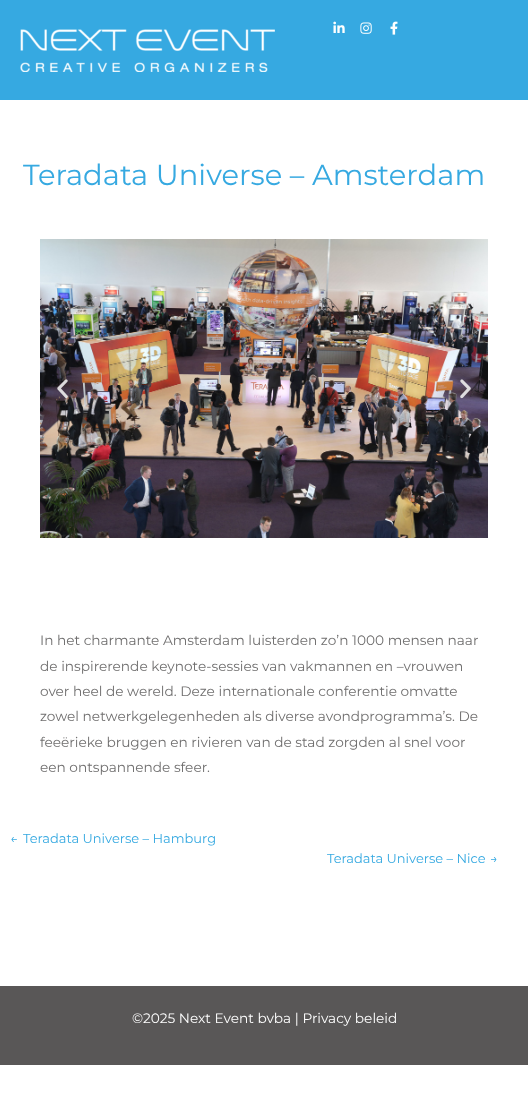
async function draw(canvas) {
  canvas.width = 528
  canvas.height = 1115
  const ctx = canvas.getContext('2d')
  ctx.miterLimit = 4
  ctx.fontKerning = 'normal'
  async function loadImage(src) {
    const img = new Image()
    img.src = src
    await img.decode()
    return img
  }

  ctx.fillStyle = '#fff'
  ctx.fillRect(0, 0, 528, 1115)
  ctx.fillStyle = '#36a9e1'
  ctx.fillRect(0, 0, 528, 100)
  ctx.drawImage(await loadImage('image0.png'), 20, 29, 255, 43)
  ctx.drawImage(await loadImage('image1.png'), 333, 21, 12, 12)
  ctx.drawImage(await loadImage('image2.png'), 360, 22, 12, 12)
  ctx.drawImage(await loadImage('image3.png'), 390, 21, 8, 14)
  ctx.font = '29px Montserrat'
  ctx.fillText('Teradata Universe – Amsterdam', 23, 185)
  ctx.drawImage(await loadImage('image4.png'), 40, 239, 448, 299)
  ctx.drawImage(await loadImage('image5.png'), 57, 379, 11, 20)
  ctx.drawImage(await loadImage('image6.png'), 460, 379, 11, 20)
  ctx.font = '13.7px Montserrat'
  ctx.fillStyle = '#706f6f'
  ctx.fillText('In het charmante Amsterdam luisterden zo’n 1000 mensen naar', 40, 645)
  ctx.fillText('de inspirerende keynote-sessies van vakmannen en –vrouwen', 40, 671)
  ctx.fillText('over heel de wereld. Deze internationale conferentie omvatte', 40, 696)
  ctx.fillText('zowel netwerkgelegenheden als diverse avondprogramma’s. De', 40, 721)
  ctx.fillText('feeërieke bruggen en rivieren van de stad zorgden al snel voor', 40, 747)
  ctx.fillText('een ontspannende sfeer.', 40, 772)
  ctx.font = '13px Montserrat'
  ctx.fillStyle = '#36a9e1'
  ctx.fillText('←', 10, 843)
  ctx.fillText('Teradata Universe – Hamburg', 23, 843)
  ctx.fillText('Teradata Universe – Nice', 327, 863)
  ctx.fillText('→', 490, 863)
  ctx.fillStyle = '#595757'
  ctx.fillRect(0, 986, 528, 79)
  ctx.font = '13.7px Montserrat'
  ctx.fillStyle = '#fff'
  ctx.fillText('©2025 Next Event bvba | Privacy beleid', 132, 1023)
}

draw(document.querySelector('canvas'))
